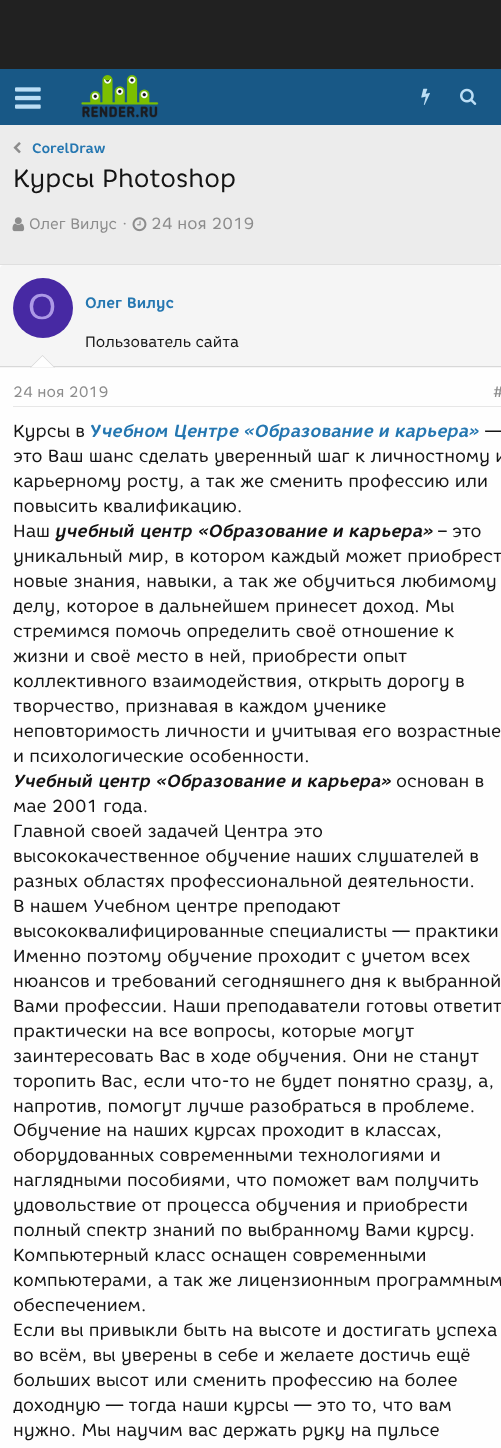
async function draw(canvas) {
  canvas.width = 501
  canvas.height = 1448
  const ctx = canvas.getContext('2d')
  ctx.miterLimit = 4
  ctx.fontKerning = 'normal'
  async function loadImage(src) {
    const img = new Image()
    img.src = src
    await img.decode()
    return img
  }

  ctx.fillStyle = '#ececec'
  ctx.fillRect(0, 0, 501, 1448)
  ctx.fillStyle = '#212121'
  ctx.fillRect(0, 0, 501, 69)
  ctx.fillStyle = '#185886'
  ctx.fillRect(0, 69, 501, 56)
  ctx.drawImage(await loadImage('image0.png'), 15, 87, 26, 22)
  ctx.drawImage(await loadImage('image1.png'), 81, 75, 78, 43)
  ctx.drawImage(await loadImage('image2.png'), 421, 88, 9, 17)
  ctx.drawImage(await loadImage('image3.png'), 460, 88, 17, 17)
  ctx.drawImage(await loadImage('image4.png'), 13, 142, 8, 12)
  ctx.font = 'bold 13.75px "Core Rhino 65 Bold"'
  ctx.fillStyle = '#2577b1'
  ctx.fillText('CorelDraw', 32, 153)
  ctx.font = '25px "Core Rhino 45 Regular"'
  ctx.fillStyle = '#141414'
  ctx.fillText('Курсы Photoshop', 13, 187)
  ctx.drawImage(await loadImage('image5.png'), 12, 217, 13, 15)
  ctx.font = '15px "Core Rhino 45 Regular"'
  ctx.fillStyle = '#8c8c8c'
  ctx.fillText('Олег Вилус', 29, 229)
  ctx.font = '16.25px "Core Rhino 45 Regular"'
  ctx.fillText('·', 122, 229)
  ctx.drawImage(await loadImage('image6.png'), 132, 217, 15, 15)
  ctx.fillText('24 ноя 2019', 151, 229)
  ctx.fillStyle = '#fefefe'
  ctx.fillRect(0, 265, 501, 1183)
  ctx.fillStyle = '#dfdfdf'
  ctx.fillRect(0, 264, 501, 1)
  ctx.fillStyle = '#f5f5f5'
  ctx.beginPath()
  ctx.roundRect(0, 265, 501, 103, [4, 4, 0, 0])
  ctx.fill()
  ctx.fillStyle = '#d8d8d8'
  ctx.fillRect(0, 366, 501, 1)
  ctx.fillStyle = '#4729a3'
  ctx.beginPath()
  ctx.arc(43, 308, 30, 0, 2 * Math.PI)
  ctx.fill()
  ctx.font = '36px Liberation Sans'
  ctx.fillStyle = '#ac99e6'
  ctx.fillText('О', 28, 319)
  ctx.font = 'bold 15px "Core Rhino 65 Bold"'
  ctx.fillStyle = '#2577b1'
  ctx.fillText('Олег Вилус', 85, 308)
  ctx.font = '15px "Core Rhino 45 Regular"'
  ctx.fillStyle = '#141414'
  ctx.fillText('Пользователь сайта', 85, 347)
  ctx.fillStyle = '#d8d8d8'
  ctx.beginPath()
  ctx.moveTo(55, 367.5)
  ctx.lineTo(30, 367.5)
  ctx.lineTo(42.5, 355)
  ctx.closePath()
  ctx.fill()
  ctx.fillStyle = '#fefefe'
  ctx.beginPath()
  ctx.moveTo(54, 367.5)
  ctx.lineTo(31, 367.5)
  ctx.lineTo(42.5, 356)
  ctx.closePath()
  ctx.fill()
  ctx.fillStyle = '#e7e7e7'
  ctx.fillRect(13, 406, 488, 1)
  ctx.fillStyle = '#8c8c8c'
  ctx.fillText('24 ноя 2019', 13, 397)
  ctx.fillText('#', 493, 397)
  ctx.font = '17.5px "Core Rhino 45 Regular"'
  ctx.fillStyle = '#141414'
  ctx.fillText('Курсы в', 13, 437)
  ctx.font = 'bold 17.5px "Core Rhino 65 Bold"'
  ctx.fillStyle = '#2577b1'
  ctx.fillText('У', 90, 437)
  ctx.font = 'italic bold 17.5px "Core Rhino 65 Bold"'
  ctx.fillText('чебном Центре «Образование и карьера»', 101, 437)
  ctx.font = '17.5px "Core Rhino 45 Regular"'
  ctx.fillStyle = '#141414'
  ctx.fillText('—', 485, 437)
  ctx.fillText('это Ваш шанс сделать уверенный шаг к личностному и', 13, 462)
  ctx.fillText('карьерному росту, а так же сменить профессию или', 13, 487)
  ctx.fillText('повысить квалификацию.', 13, 512)
  ctx.fillText('Наш', 13, 537)
  ctx.font = 'italic bold 17.5px "Core Rhino 65 Bold"'
  ctx.fillText('учебный центр «Образование и карьера»', 55, 537)
  ctx.font = '17.5px "Core Rhino 45 Regular"'
  ctx.fillText('– это', 438, 537)
  ctx.fillText('уникальный мир, в котором каждый может приобрест', 13, 562)
  ctx.fillText('новые знания, навыки, а так же обучиться любимому', 13, 587)
  ctx.fillText('делу, которое в дальнейшем принесет доход. Мы', 13, 612)
  ctx.fillText('стремимся помочь определить своё отношение к', 13, 637)
  ctx.fillText('жизни и своё место в ней, приобрести опыт', 13, 662)
  ctx.fillText('коллективного взаимодействия, открыть дорогу в', 13, 687)
  ctx.fillText('творчество, признавая в каждом ученике', 13, 712)
  ctx.fillText('неповторимость личности и учитывая его возрастные', 13, 737)
  ctx.fillText('и психологические особенности.', 13, 762)
  ctx.font = 'italic bold 17.5px "Core Rhino 65 Bold"'
  ctx.fillText('Учебный центр «Образование и карьера»', 13, 787)
  ctx.font = '17.5px "Core Rhino 45 Regular"'
  ctx.fillText('основан в', 396, 787)
  ctx.fillText('мае 2001 года.', 13, 812)
  ctx.fillText('Главной своей задачей Центра это', 13, 837)
  ctx.fillText('высококачественное обучение наших слушателей в', 13, 862)
  ctx.fillText('разных областях профессиональной деятельности.', 13, 887)
  ctx.fillText('В нашем Учебном центре преподают', 13, 912)
  ctx.fillText('высококвалифицированные специалисты — практики', 13, 937)
  ctx.fillText('Именно поэтому обучение проходит с учетом всех', 13, 962)
  ctx.fillText('нюансов и требований сегодняшнего дня к выбранной', 13, 987)
  ctx.fillText('Вами профессии. Наши преподаватели готовы ответит', 13, 1012)
  ctx.fillText('практически на все вопросы, которые могут', 13, 1037)
  ctx.fillText('заинтересовать Вас в ходе обучения. Они не станут', 13, 1062)
  ctx.fillText('торопить Вас, если что-то не будет понятно сразу, а,', 13, 1087)
  ctx.fillText('напротив, помогут лучше разобраться в проблеме.', 13, 1112)
  ctx.fillText('Обучение на наших курсах проходит в классах,', 13, 1136)
  ctx.fillText('оборудованных современными технологиями и', 13, 1161)
  ctx.fillText('наглядными пособиями, что поможет вам получить', 13, 1186)
  ctx.fillText('удовольствие от процесса обучения и приобрести', 13, 1211)
  ctx.fillText('полный спектр знаний по выбранному Вами курсу.', 13, 1236)
  ctx.fillText('Компьютерный класс оснащен современными', 13, 1261)
  ctx.fillText('компьютерами, а так же лицензионным программным', 13, 1286)
  ctx.fillText('обеспечением.', 13, 1311)
  ctx.fillText('Если вы привыкли быть на высоте и достигать успеха', 13, 1336)
  ctx.fillText('во всём, вы уверены в себе и желаете достичь ещё', 13, 1361)
  ctx.fillText('больших высот или сменить профессию на более', 13, 1386)
  ctx.fillText('доходную — тогда наши курсы — это то, что вам', 13, 1411)
  ctx.fillText('нужно. Мы научим вас держать руку на пульсе', 13, 1436)
}

draw(document.querySelector('canvas'))
